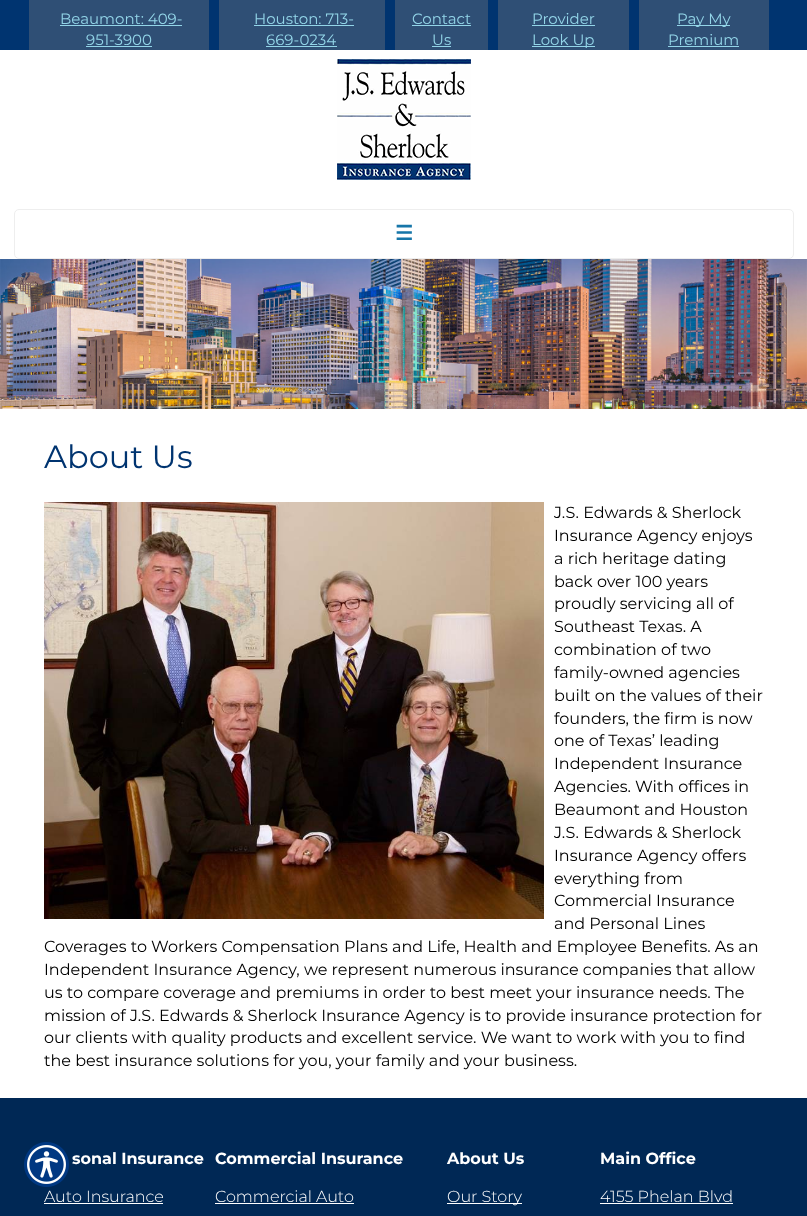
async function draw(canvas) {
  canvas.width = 807
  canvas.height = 1216
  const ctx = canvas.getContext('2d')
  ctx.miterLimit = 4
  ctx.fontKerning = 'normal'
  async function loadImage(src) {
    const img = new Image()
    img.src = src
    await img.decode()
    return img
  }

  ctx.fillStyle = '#fff'
  ctx.fillRect(0, 0, 807, 1216)
  ctx.fillStyle = '#003470'
  ctx.fillRect(0, 0, 807, 50)
  ctx.fillStyle = '#2f4f75'
  ctx.fillRect(29, 0, 180, 50)
  ctx.font = '100 15px Montserrat'
  ctx.fillStyle = '#93d5e8'
  ctx.fillText('Beaumont: 409-', 60, 24)
  ctx.fillRect(60, 25, 122, 1)
  ctx.fillText('951-3900', 86, 45)
  ctx.fillRect(86, 46, 66, 1)
  ctx.fillStyle = '#2f4f75'
  ctx.fillRect(219, 0, 166, 50)
  ctx.fillStyle = '#93d5e8'
  ctx.fillText('Houston: 713-', 254, 24)
  ctx.fillRect(254, 25, 100, 1)
  ctx.fillText('669-0234', 266, 45)
  ctx.fillRect(266, 46, 71, 1)
  ctx.fillStyle = '#2f4f75'
  ctx.fillRect(395, 0, 93, 50)
  ctx.fillStyle = '#93d5e8'
  ctx.fillText('Contact', 412, 24)
  ctx.fillRect(412, 25, 59, 1)
  ctx.fillText('Us', 432, 45)
  ctx.fillRect(432, 46, 19, 1)
  ctx.fillStyle = '#2f4f75'
  ctx.fillRect(498, 0, 131, 50)
  ctx.fillStyle = '#93d5e8'
  ctx.fillText('Provider', 532, 24)
  ctx.fillRect(532, 25, 63, 1)
  ctx.fillRect(532, 46, 63, 1)
  ctx.fillText('Look Up', 532, 45)
  ctx.fillStyle = '#2f4f75'
  ctx.fillRect(639, 0, 130, 50)
  ctx.fillStyle = '#93d5e8'
  ctx.fillRect(677, 25, 53, 1)
  ctx.fillText('Pay My', 677, 24)
  ctx.fillText('Premium', 668, 45)
  ctx.fillRect(668, 46, 71, 1)
  ctx.drawImage(await loadImage('image0.png'), 337, 59, 134, 121)
  ctx.beginPath()
  ctx.roundRect(14.5, 209.5, 779, 49, 4.5)
  ctx.strokeStyle = '#eee'
  ctx.stroke()
  ctx.font = 'bold 20px DejaVu Sans'
  ctx.fillStyle = '#1676a9'
  ctx.fillText('☰', 395, 240)
  ctx.drawImage(await loadImage('image1.png'), 0, 259, 807, 150)
  ctx.font = '100 32px Montserrat'
  ctx.fillStyle = '#003470'
  ctx.fillText('About Us', 44, 468)
  ctx.drawImage(await loadImage('image2.png'), 44, 502, 500, 417)
  ctx.font = '100 16px Montserrat'
  ctx.fillStyle = '#000'
  ctx.fillText('J.S. Edwards & Sherlock', 554, 518)
  ctx.fillText('Insurance Agency enjoys', 554, 541)
  ctx.fillText('a rich heritage dating', 554, 564)
  ctx.fillText('back over 100 years', 554, 587)
  ctx.fillText('proudly servicing all of', 554, 609)
  ctx.fillText('Southeast Texas. A', 554, 632)
  ctx.fillText('combination of two', 554, 655)
  ctx.fillText('family-owned agencies', 554, 678)
  ctx.fillText('built on the values of their', 554, 701)
  ctx.fillText('founders, the firm is now', 554, 724)
  ctx.fillText('one of Texas’ leading', 554, 746)
  ctx.fillText('Independent Insurance', 554, 769)
  ctx.fillText('Agencies. With offices in', 554, 792)
  ctx.fillText('Beaumont and Houston', 554, 815)
  ctx.fillText('J.S. Edwards & Sherlock', 554, 838)
  ctx.fillText('Insurance Agency offers', 554, 861)
  ctx.fillText('everything from', 554, 884)
  ctx.fillText('Commercial Insurance', 554, 906)
  ctx.fillText('and Personal Lines', 554, 929)
  ctx.fillText('Coverages to Workers Compensation Plans and Life, Health and Employee Benefits. As an', 44, 952)
  ctx.fillText('Independent Insurance Agency, we represent numerous insurance companies that allow', 44, 975)
  ctx.fillText('us to compare coverage and premiums in order to best meet your insurance needs. The', 44, 998)
  ctx.fillText('mission of J.S. Edwards & Sherlock Insurance Agency is to provide insurance protection for', 44, 1021)
  ctx.fillText('our clients with quality products and excellent service. We want to work with you to find', 44, 1043)
  ctx.fillText('the best insurance solutions for you, your family and your business.', 44, 1066)
  ctx.fillStyle = '#002855'
  ctx.fillRect(0, 1098, 807, 118)
  ctx.font = 'bold 16px Montserrat'
  ctx.fillStyle = '#fff'
  ctx.fillText('sonal Insurance', 72, 1164)
  ctx.font = '300 16px Montserrat'
  ctx.fillText('Auto Insurance', 44, 1202)
  ctx.fillRect(44, 1203, 119, 1)
  ctx.font = 'bold 16px Montserrat'
  ctx.fillText('Commercial Insurance', 215, 1164)
  ctx.font = '300 16px Montserrat'
  ctx.fillText('Commercial Auto', 215, 1202)
  ctx.fillRect(215, 1203, 139, 1)
  ctx.font = 'bold 16px Montserrat'
  ctx.fillText('About Us', 447, 1164)
  ctx.fillRect(447, 1203, 75, 1)
  ctx.font = '300 16px Montserrat'
  ctx.fillText('Our Story', 447, 1202)
  ctx.font = 'bold 16px Montserrat'
  ctx.fillText('Main Office', 600, 1164)
  ctx.font = '300 16px Montserrat'
  ctx.fillText('4155 Phelan Blvd', 600, 1202)
  ctx.fillRect(600, 1203, 133, 1)
  ctx.drawImage(await loadImage('image3.png'), 24, 1142, 45, 45)
}

draw(document.querySelector('canvas'))
